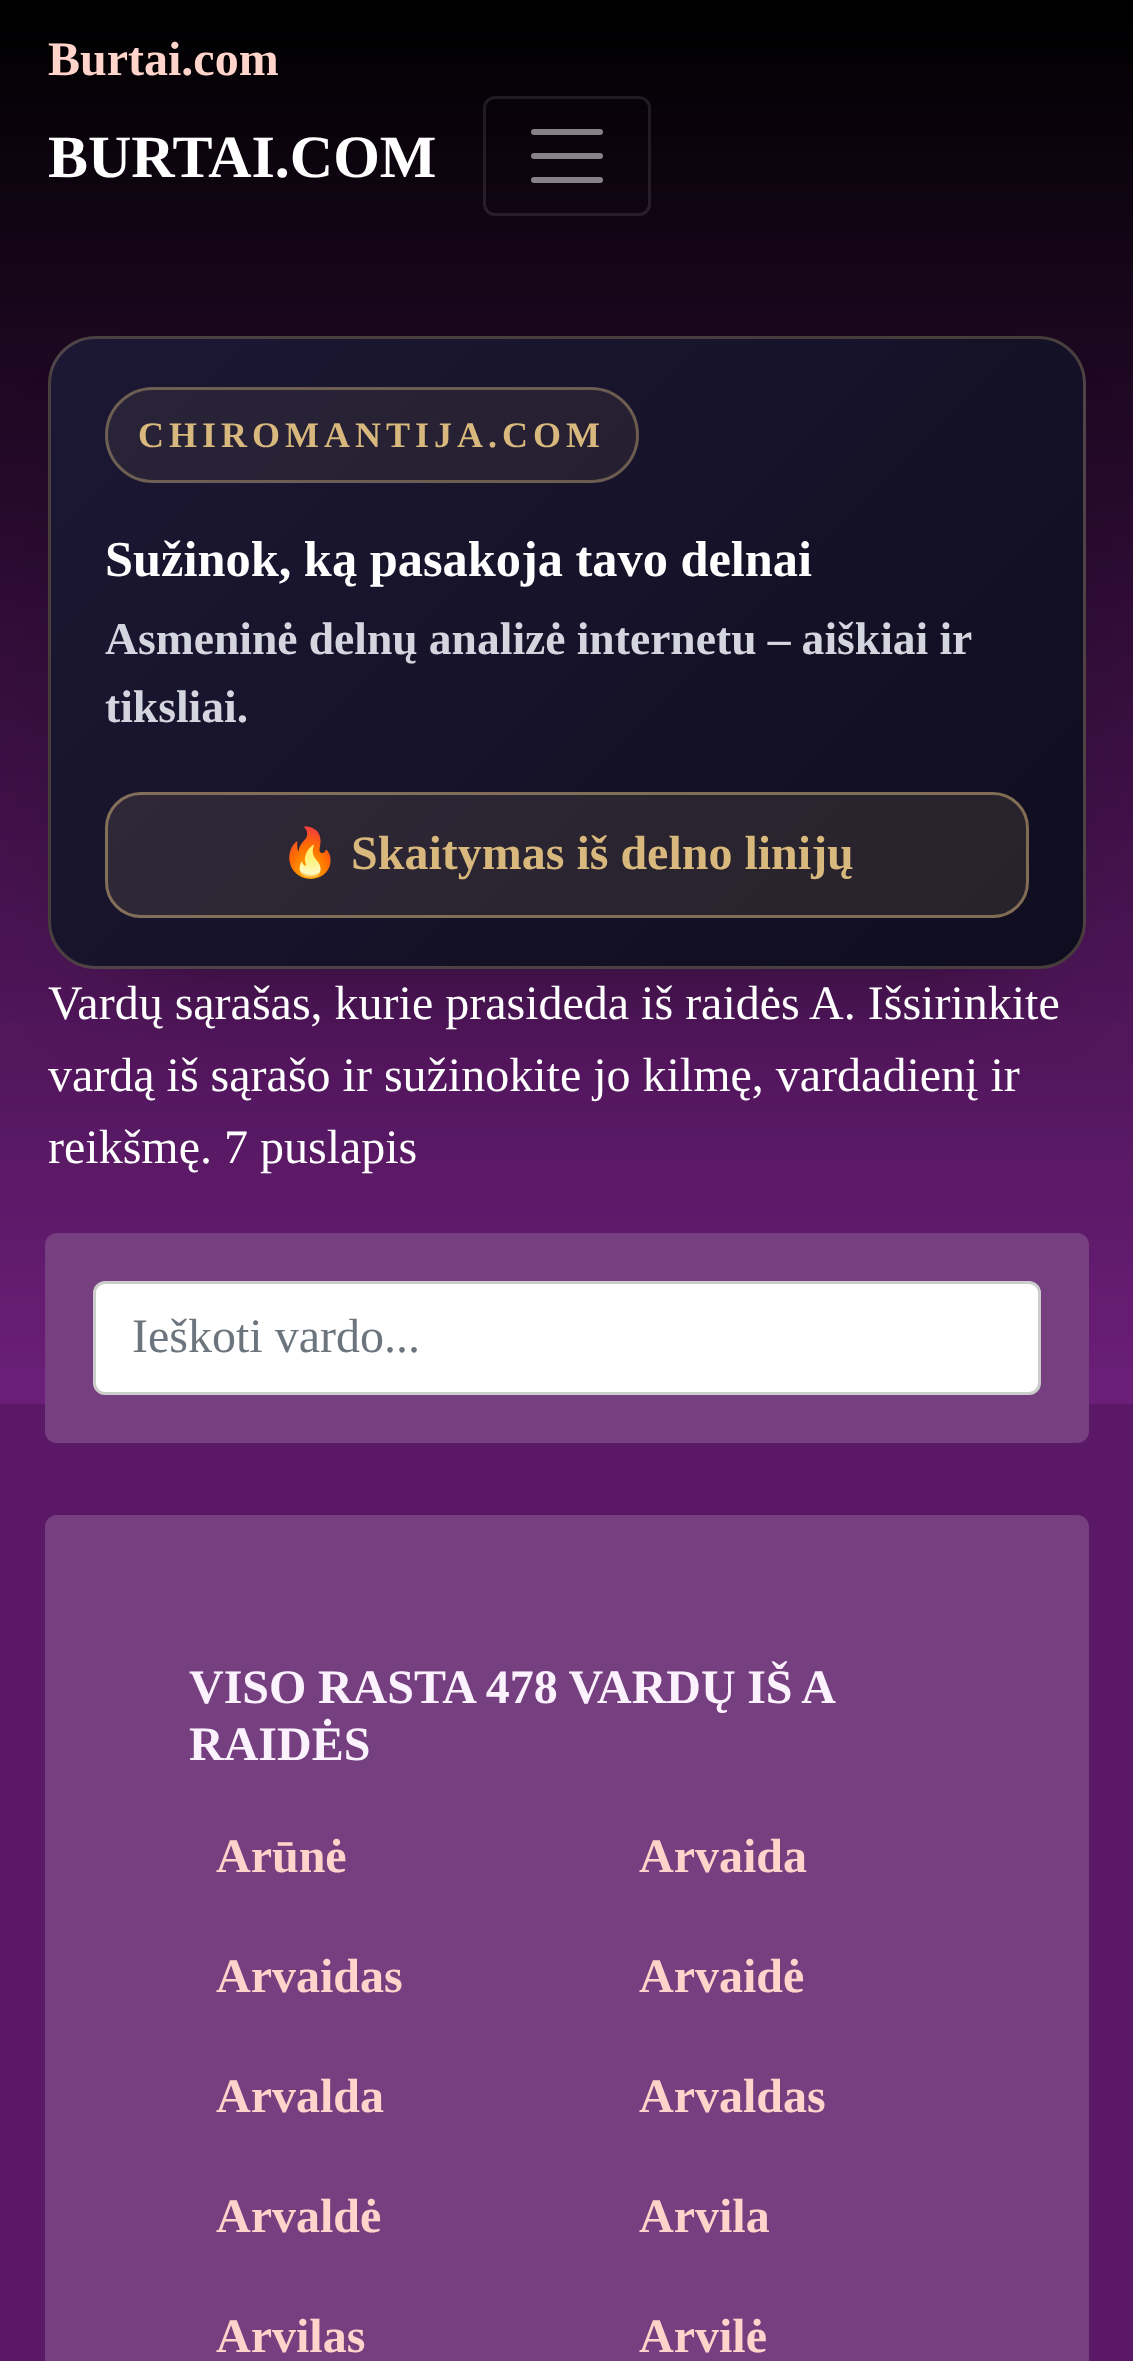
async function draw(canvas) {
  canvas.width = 1133
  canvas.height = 2361
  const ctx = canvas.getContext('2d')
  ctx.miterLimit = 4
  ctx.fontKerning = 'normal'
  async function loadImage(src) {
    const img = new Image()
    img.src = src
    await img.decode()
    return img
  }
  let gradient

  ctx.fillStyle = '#5a1866'
  ctx.fillRect(0, 0, 1133, 2361)
  ctx.drawImage(await loadImage('image0.png'), 0, 0, 1133, 1404)
  ctx.font = 'bold 48px Liberation Serif'
  ctx.fillStyle = '#ffd4ca'
  ctx.fillText('Burtai.com', 48, 75)
  ctx.font = 'bold 60px Liberation Serif'
  ctx.fillStyle = '#fff'
  ctx.fillText('BURTAI.COM', 48, 177)
  ctx.beginPath()
  ctx.roundRect(484.5, 97.5, 165, 117, 10.5)
  ctx.strokeStyle = '#ffffff1a'
  ctx.lineWidth = 3
  ctx.stroke()
  ctx.beginPath()
  ctx.moveTo(534, 132)
  ctx.lineTo(600, 132)
  ctx.moveTo(534, 156)
  ctx.lineTo(600, 156)
  ctx.moveTo(534, 180)
  ctx.lineTo(600, 180)
  ctx.strokeStyle = '#ffffff80'
  ctx.lineWidth = 6
  ctx.lineCap = 'round'
  ctx.stroke()
  ctx.fillStyle = '#00000080'
  ctx.filter = 'blur(60px)'
  ctx.beginPath()
  ctx.rect(120, 462, 894, 489)
  ctx.fill()
  ctx.filter = 'none'
  ctx.save()
  ctx.beginPath()
  ctx.roundRect(48, 336, 1038, 633, 48)
  ctx.clip()
  gradient = ctx.createLinearGradient(152, -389, 982, 440)
  gradient.addColorStop(0, '#1c1834')
  gradient.addColorStop(1, '#0f0d1f')
  ctx.fillStyle = gradient
  ctx.fillRect(79, 336, 976, 3)
  gradient = ctx.createLinearGradient(-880, 238, -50, 1067)
  gradient.addColorStop(0, '#1c1834')
  gradient.addColorStop(1, '#0f0d1f')
  ctx.fillStyle = gradient
  ctx.fillRect(48, 367, 3, 571)
  gradient = ctx.createLinearGradient(152, 238, 982, 1067)
  gradient.addColorStop(0, '#1c1834')
  gradient.addColorStop(1, '#0f0d1f')
  ctx.fillStyle = gradient
  ctx.fillRect(51, 339, 1032, 627)
  gradient = ctx.createLinearGradient(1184, 238, 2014, 1067)
  gradient.addColorStop(0, '#1c1834')
  gradient.addColorStop(1, '#0f0d1f')
  ctx.fillStyle = gradient
  ctx.fillRect(1083, 367, 3, 571)
  gradient = ctx.createLinearGradient(152, 865, 982, 1694)
  gradient.addColorStop(0, '#1c1834')
  gradient.addColorStop(1, '#0f0d1f')
  ctx.fillStyle = gradient
  ctx.fillRect(79, 966, 976, 3)
  ctx.restore()
  ctx.beginPath()
  ctx.roundRect(49.5, 337.5, 1035, 630, 46.5)
  ctx.strokeStyle = '#d8b87c47'
  ctx.lineWidth = 3
  ctx.stroke()
  ctx.fillStyle = '#d8b87c14'
  ctx.beginPath()
  ctx.roundRect(105, 387, 534, 96, 48)
  ctx.fill()
  ctx.beginPath()
  ctx.roundRect(106.5, 388.5, 531, 93, 46.5)
  ctx.strokeStyle = '#d8b87c66'
  ctx.stroke()
  ctx.letterSpacing = '5px'
  ctx.font = 'bold 36px Liberation Serif'
  ctx.fillStyle = '#d8b87c'
  ctx.fillText('CHIROMANTIJA.COM', 138, 447)
  ctx.letterSpacing = '0px'
  ctx.font = 'bold 50.4px Liberation Serif'
  ctx.fillStyle = '#fff'
  ctx.fillText('Sužinok, ką pasakoja tavo delnai', 105, 576)
  ctx.wordSpacing = '-0.25px'
  ctx.font = 'bold 45.6px Liberation Serif'
  ctx.fillStyle = '#d5d5df'
  ctx.fillText('Asmeninė delnų analizė internetu – aiškiai ir', 105, 654)
  ctx.wordSpacing = '0px'
  ctx.fillText('tiksliai.', 105, 722)
  ctx.fillStyle = '#d8b87c1f'
  ctx.beginPath()
  ctx.roundRect(105, 792, 924, 126, 36)
  ctx.fill()
  ctx.beginPath()
  ctx.roundRect(106.5, 793.5, 921, 123, 34.5)
  ctx.strokeStyle = '#d8b87c80'
  ctx.stroke()
  ctx.font = 'bold 48px Noto Color Emoji'
  ctx.fillStyle = '#d8b87c'
  ctx.fillText('🔥', 280, 869)
  ctx.font = 'bold 48px Liberation Serif'
  ctx.fillText('Skaitymas iš delno linijų', 351, 869)
  ctx.font = '48px Liberation Serif'
  ctx.fillStyle = '#fff'
  ctx.fillText('Vardų sąrašas, kurie prasideda iš raidės A. Išsirinkite', 48, 1019)
  ctx.fillText('vardą iš sąrašo ir sužinokite jo kilmę, vardadienį ir', 48, 1091)
  ctx.fillText('reikšmę. 7 puslapis', 48, 1163)
  ctx.fillStyle = '#764080'
  ctx.beginPath()
  ctx.roundRect(45, 1233, 1044, 210, 12)
  ctx.fill()
  ctx.fillStyle = '#fff'
  ctx.beginPath()
  ctx.roundRect(94.5, 1282.5, 945, 111, 10.5)
  ctx.fill()
  ctx.strokeStyle = '#ccc'
  ctx.stroke()
  ctx.fillStyle = '#6c757d'
  ctx.fillText('Ieškoti vardo...', 132, 1352)
  ctx.fillStyle = '#764080'
  ctx.beginPath()
  ctx.roundRect(45, 1515, 1044, 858, 12)
  ctx.fill()
  ctx.wordSpacing = '-0.5px'
  ctx.font = 'bold 48px Liberation Serif'
  ctx.fillStyle = '#fcf2fe'
  ctx.fillText('VISO RASTA 478 VARDŲ IŠ A', 189, 1703)
  ctx.wordSpacing = '0px'
  ctx.fillText('RAIDĖS', 189, 1760)
  ctx.fillStyle = '#ffd4ca'
  ctx.fillText('Arūnė', 216, 1872)
  ctx.fillText('Arvaida', 639, 1872)
  ctx.fillText('Arvaidas', 216, 1992)
  ctx.fillText('Arvaidė', 639, 1992)
  ctx.fillText('Arvalda', 216, 2112)
  ctx.fillText('Arvaldas', 639, 2112)
  ctx.fillText('Arvaldė', 216, 2232)
  ctx.fillText('Arvila', 639, 2232)
  ctx.fillText('Arvilas', 216, 2352)
  ctx.fillText('Arvilė', 639, 2352)
}

draw(document.querySelector('canvas'))
